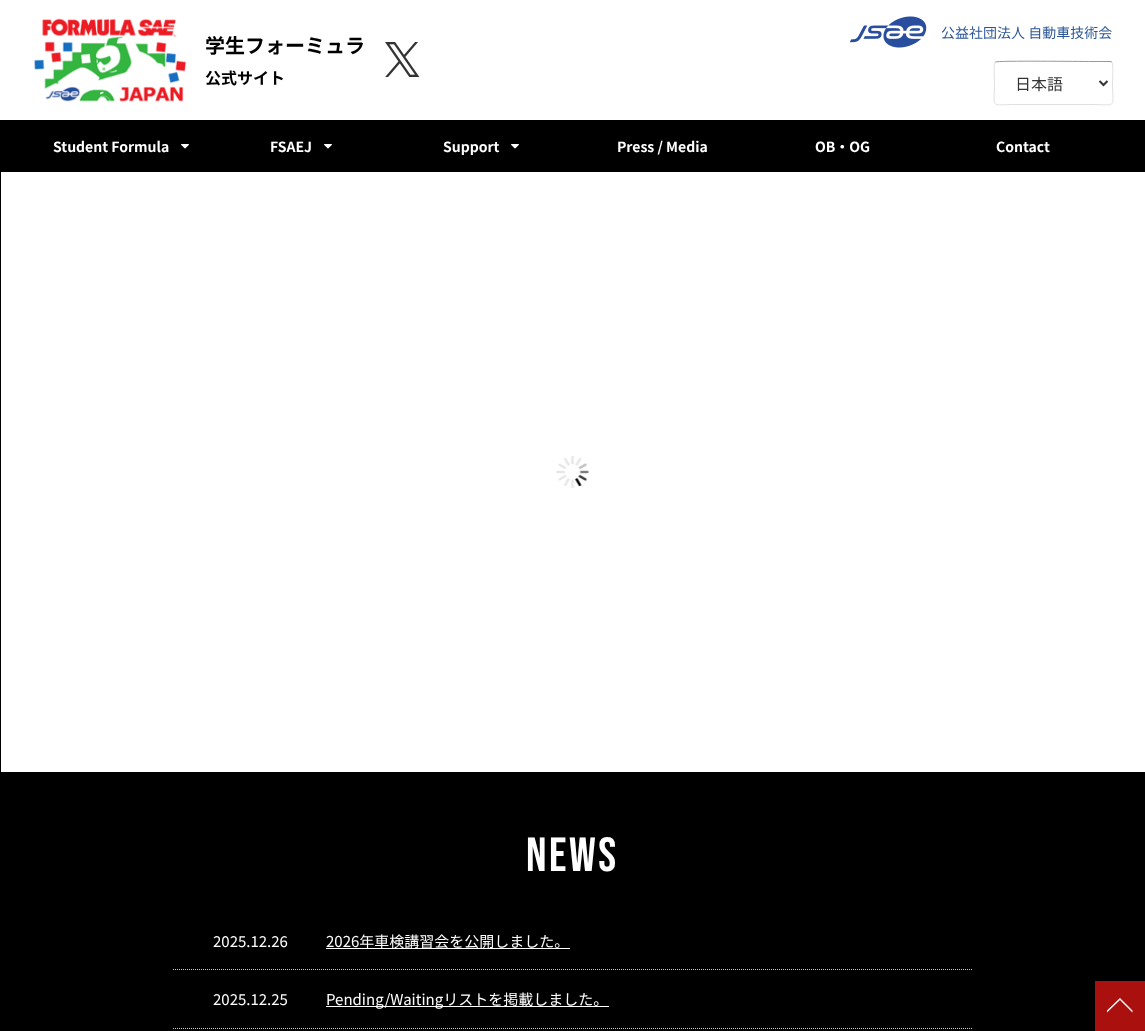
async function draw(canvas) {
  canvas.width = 1145
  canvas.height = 1031
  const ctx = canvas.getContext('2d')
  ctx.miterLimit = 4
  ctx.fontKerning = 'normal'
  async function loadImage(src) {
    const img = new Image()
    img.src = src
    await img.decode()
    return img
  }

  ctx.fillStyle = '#fff'
  ctx.fillRect(0, 0, 1145, 1031)
  ctx.drawImage(await loadImage('image0.png'), 34, 18, 153, 84)
  ctx.font = 'bold 20px Noto Sans JP'
  ctx.fillStyle = '#000'
  ctx.fillText('学生フォーミュラ', 205, 53)
  ctx.font = 'bold 16px Noto Sans JP'
  ctx.fillText('公式サイト', 205, 84)
  ctx.drawImage(await loadImage('image1.png'), 385, 42, 35, 35)
  ctx.drawImage(await loadImage('image2.png'), 849, 16, 78, 32)
  ctx.font = '14px Noto Sans JP'
  ctx.fillStyle = '#2c5697'
  ctx.fillText('公益社団法人 自動車技術会', 941, 38)
  ctx.beginPath()
  ctx.moveTo(995, 62)
  ctx.lineTo(995.5, 62)
  ctx.bezierCurveTo(997.5, 60.5, 1081.5, 61.5, 1091, 61.5)
  ctx.lineTo(1110, 61.5)
  ctx.lineTo(1112, 62)
  ctx.strokeStyle = '#999'
  ctx.stroke()
  ctx.beginPath()
  ctx.moveTo(1112, 62)
  ctx.bezierCurveTo(1113.5, 64, 1112.5, 80, 1112.5, 83)
  ctx.bezierCurveTo(1112.5, 109.5, 1118, 104.5, 1091, 104.5)
  ctx.lineTo(1016, 104.5)
  ctx.bezierCurveTo(989, 104.5, 994.5, 109.5, 994.5, 83)
  ctx.bezierCurveTo(994.5, 80, 993.5, 64, 995, 62)
  ctx.strokeStyle = '#e0e0e0'
  ctx.stroke()
  ctx.beginPath()
  ctx.moveTo(1099.5, 81)
  ctx.lineTo(1103.5, 85)
  ctx.lineTo(1107.5, 81)
  ctx.strokeStyle = '#333'
  ctx.lineWidth = 2
  ctx.stroke()
  ctx.font = '16px Noto Sans JP'
  ctx.fillStyle = '#333'
  ctx.fillText('日本語', 1015, 90)
  ctx.fillStyle = '#000'
  ctx.fillRect(0, 120, 1145, 52)
  ctx.font = 'bold 14px Noto Sans JP'
  ctx.fillStyle = '#fff'
  ctx.fillText('Student Formula', 53, 152)
  ctx.drawImage(await loadImage('image3.png'), 181, 144, 8, 5)
  ctx.fillText('FSAEJ', 270, 152)
  ctx.drawImage(await loadImage('image3.png'), 324, 144, 8, 5)
  ctx.fillText('Support', 443, 152)
  ctx.drawImage(await loadImage('image3.png'), 511, 144, 8, 5)
  ctx.fillText('Press / Media', 617, 152)
  ctx.fillText('OB・OG', 815, 152)
  ctx.fillText('Contact', 996, 152)
  ctx.fillStyle = '#000'
  ctx.fillRect(0, 172, 1, 600)
  ctx.drawImage(await loadImage('image4.png'), 556, 456, 33, 32)
  ctx.fillRect(0, 772, 1145, 259)
  ctx.letterSpacing = '2.5px'
  ctx.font = '48px Bebas Neue'
  ctx.fillStyle = '#fff'
  ctx.fillText('NEWS', 526, 871)
  ctx.letterSpacing = '0px'
  ctx.font = '15px Noto Sans JP'
  ctx.fillText('2025.12.26', 213, 947)
  ctx.fillRect(326, 948, 244, 1)
  ctx.fillText('2026年車検講習会を公開しました。', 326, 947)
  ctx.beginPath()
  ctx.moveTo(173, 969.5)
  ctx.lineTo(973, 969.5)
  ctx.strokeStyle = '#ccc'
  ctx.lineWidth = 1
  ctx.setLineDash([1, 1])
  ctx.stroke()
  ctx.fillText('2025.12.25', 213, 1005)
  ctx.fillRect(326, 1006, 283, 1)
  ctx.fillText('Pending/Waitingリストを掲載しました。', 326, 1005)
  ctx.beginPath()
  ctx.moveTo(173, 1028.5)
  ctx.lineTo(973, 1028.5)
  ctx.stroke()
  ctx.fillStyle = '#a9100e'
  ctx.fillRect(1095, 981, 50, 50)
  ctx.fillStyle = '#fff'
  ctx.beginPath()
  ctx.moveTo(1132.5, 1010.5)
  ctx.lineTo(1132.5, 1012.5)
  ctx.lineTo(1120, 1000)
  ctx.lineTo(1107, 1012.5)
  ctx.lineTo(1107, 1010.5)
  ctx.lineTo(1120, 998)
  ctx.closePath()
  ctx.fill()
}

draw(document.querySelector('canvas'))
